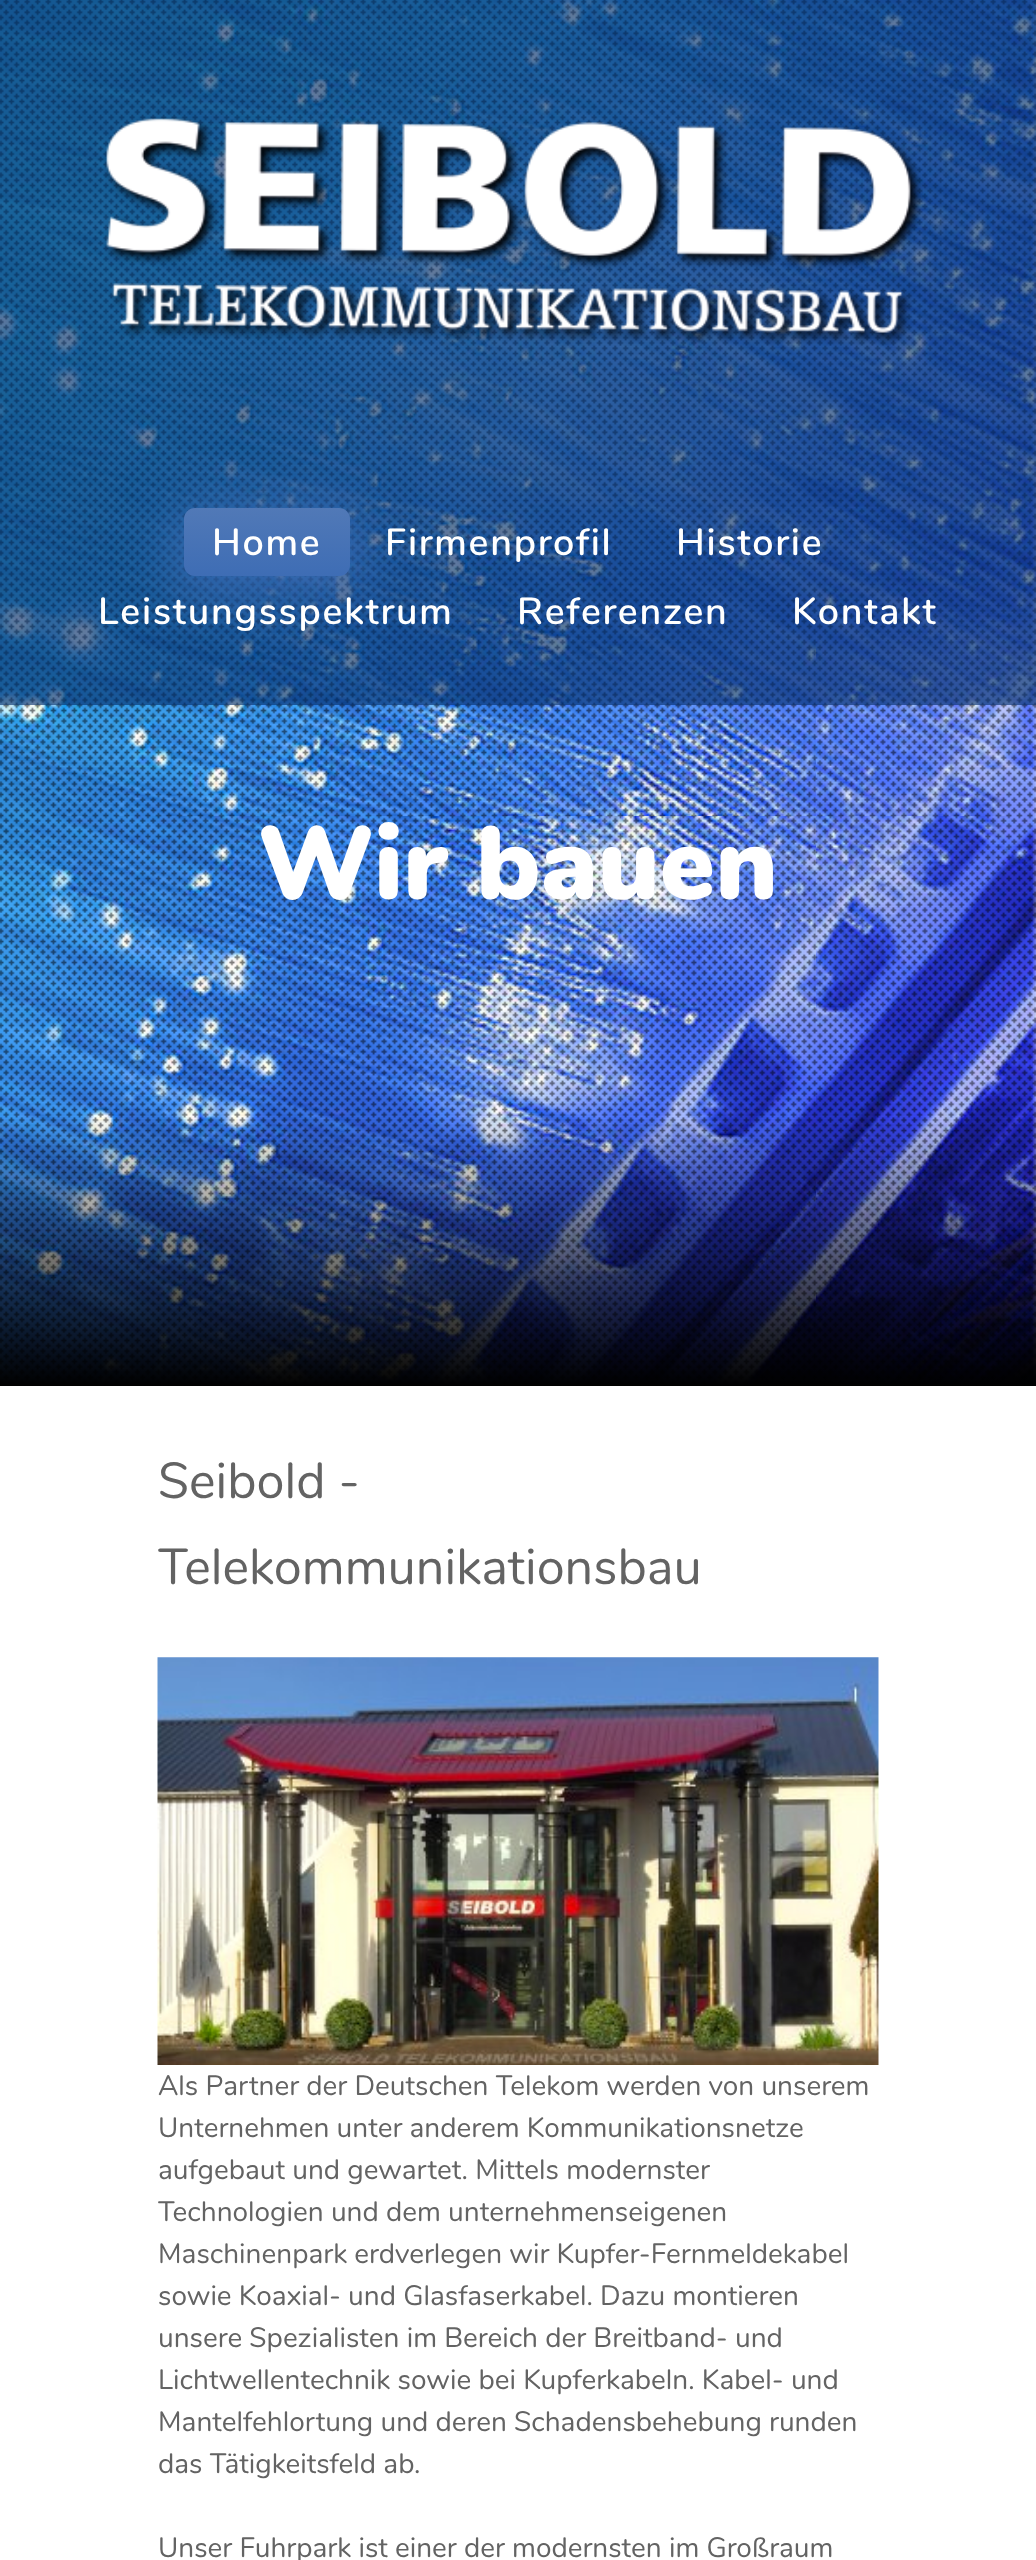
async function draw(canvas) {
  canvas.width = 1036
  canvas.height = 2560
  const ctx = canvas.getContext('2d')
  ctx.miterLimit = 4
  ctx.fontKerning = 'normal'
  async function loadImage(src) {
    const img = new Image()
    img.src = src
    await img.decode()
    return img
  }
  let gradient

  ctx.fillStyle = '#fff'
  ctx.fillRect(0, 0, 1036, 2560)
  ctx.drawImage(await loadImage('image0.png'), 0, 0, 1036, 1384)
  ctx.drawImage(await loadImage('image1.png'), 0, 0, 1036, 1384)
  ctx.fillStyle = '#062f6ba3'
  ctx.fillRect(0, 0, 1036, 705)
  ctx.drawImage(await loadImage('image2.png'), 104, 117, 819, 228)
  ctx.fillStyle = '#3e6db5cc'
  ctx.filter = 'blur(28px)'
  ctx.beginPath()
  ctx.roundRect(175, 508, 184, 85, 19)
  ctx.fill()
  ctx.filter = 'none'
  gradient = ctx.createLinearGradient(267, 508, 267, 576)
  gradient.addColorStop(0, '#5179b7')
  gradient.addColorStop(1, '#3e6db5')
  ctx.fillStyle = gradient
  ctx.beginPath()
  ctx.roundRect(184, 508, 166, 68, 11)
  ctx.fill()
  ctx.letterSpacing = '1.75px'
  ctx.font = '600 37.75px Nunito'
  ctx.fillStyle = '#fff'
  ctx.fillText('Home', 212, 555)
  ctx.fillText('Firmenprofil', 385, 555)
  ctx.fillText('Historie', 676, 555)
  ctx.fillText('Leistungsspektrum', 98, 624)
  ctx.fillText('Referenzen', 517, 624)
  ctx.fillText('Kontakt', 792, 624)
  ctx.letterSpacing = '0px'
  ctx.font = '900 103.5px Nunito'
  ctx.fillText('Wir bauen', 258, 899)
  gradient = ctx.createLinearGradient(518, 705, 518, 1386)
  gradient.addColorStop(0.6, '#00000000')
  gradient.addColorStop(1, '#000')
  ctx.fillStyle = gradient
  ctx.fillRect(0, 1119, 1036, 267)
  ctx.font = '50.4px Nunito'
  ctx.fillStyle = '#636363'
  ctx.fillText('Seibold -', 158, 1498)
  ctx.fillText('Telekommunikationsbau', 158, 1584)
  ctx.drawImage(await loadImage('image3.png'), 157, 1657, 722, 408)
  ctx.font = '28px Nunito'
  ctx.fillText('Als Partner der Deutschen Telekom werden von unserem', 158, 2095)
  ctx.fillText('Unternehmen unter anderem Kommunikationsnetze', 158, 2137)
  ctx.fillText('aufgebaut und gewartet. Mittels modernster', 158, 2179)
  ctx.fillText('Technologien und dem unternehmenseigenen', 158, 2221)
  ctx.fillText('Maschinenpark erdverlegen wir Kupfer-Fernmeldekabel', 158, 2263)
  ctx.fillText('sowie Koaxial- und Glasfaserkabel. Dazu montieren', 158, 2305)
  ctx.fillText('unsere Spezialisten im Bereich der Breitband- und', 158, 2347)
  ctx.fillText('Lichtwellentechnik sowie bei Kupferkabeln. Kabel- und', 158, 2389)
  ctx.fillText('Mantelfehlortung und deren Schadensbehebung runden', 158, 2431)
  ctx.fillText('das Tätigkeitsfeld ab.', 158, 2473)
  ctx.fillText('Unser Fuhrpark ist einer der modernsten im Großraum', 158, 2557)
}

draw(document.querySelector('canvas'))
